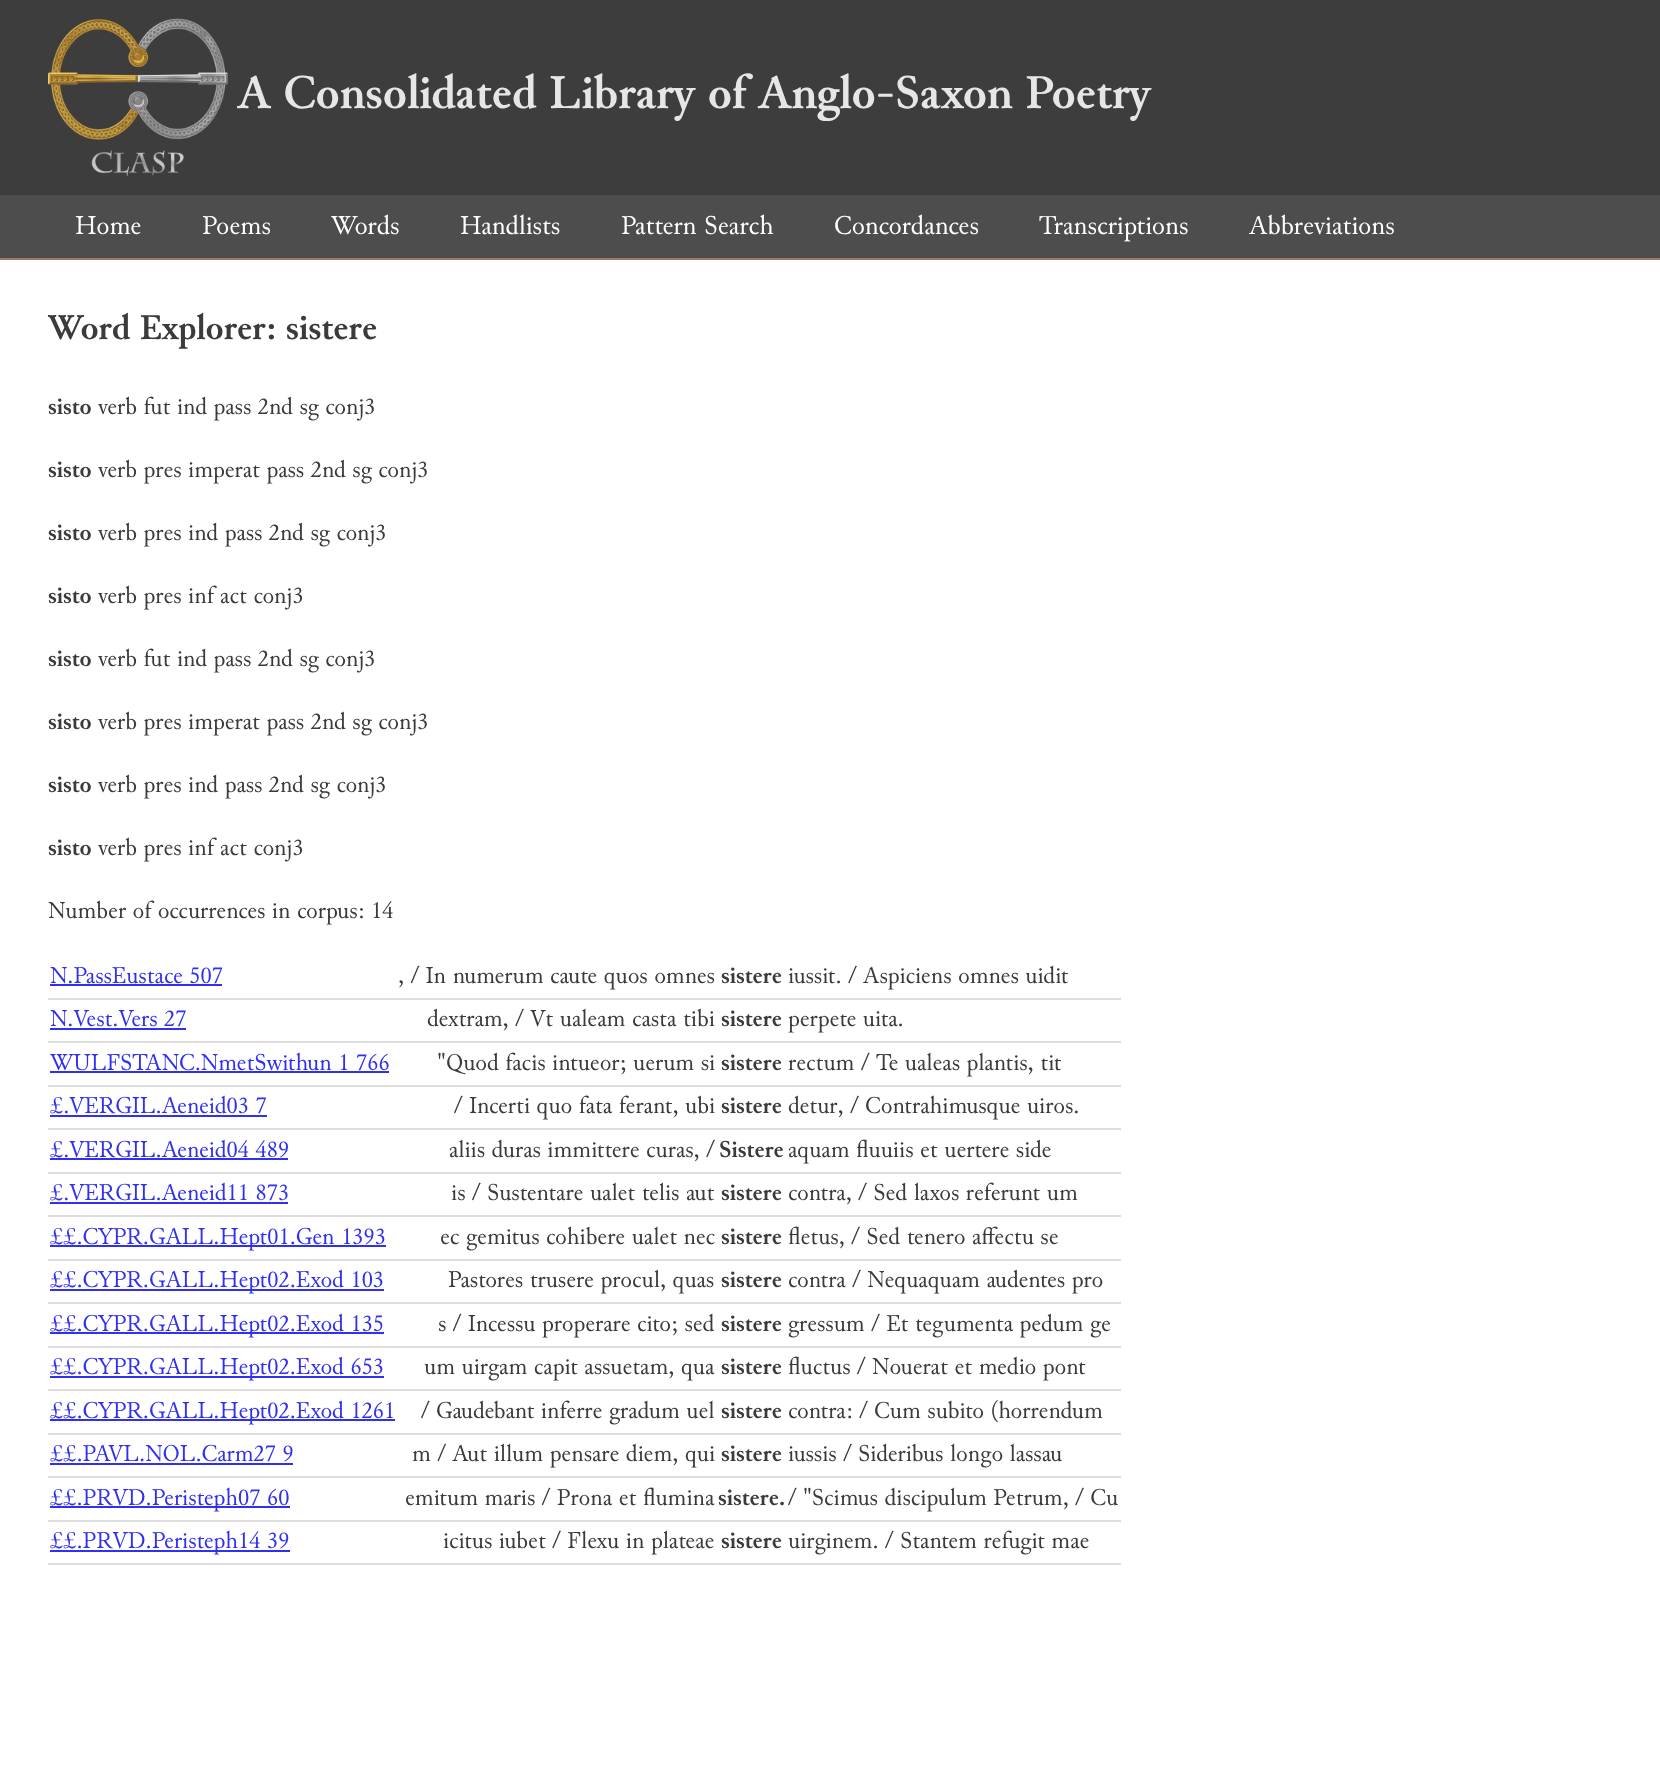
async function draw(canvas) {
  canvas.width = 1660
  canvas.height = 1772
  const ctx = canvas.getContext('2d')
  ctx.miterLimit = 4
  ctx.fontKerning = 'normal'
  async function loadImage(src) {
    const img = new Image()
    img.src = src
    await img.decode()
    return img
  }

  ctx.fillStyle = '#fff'
  ctx.fillRect(0, 0, 1660, 1772)
  ctx.fillStyle = '#3d3d3d'
  ctx.fillRect(0, 0, 1660, 195)
  ctx.drawImage(await loadImage('image0.png'), 48, 18, 180, 159)
  ctx.font = 'bold 48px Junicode'
  ctx.fillStyle = '#e6e6e6'
  ctx.fillText('A Consolidated Library of Anglo-Saxon Poetry', 238, 108)
  ctx.fillStyle = '#4d4d4d'
  ctx.fillRect(0, 195, 1660, 63)
  ctx.fillStyle = '#9c7e68'
  ctx.fillRect(0, 258, 1660, 2)
  ctx.font = '27px Junicode'
  ctx.fillStyle = '#fff'
  ctx.fillText('Home', 75, 234)
  ctx.fillText('Poems', 202, 234)
  ctx.fillText('Words', 331, 234)
  ctx.fillText('Handlists', 460, 234)
  ctx.fillText('Pattern Search', 621, 234)
  ctx.fillText('Concordances', 834, 234)
  ctx.fillText('Transcriptions', 1039, 234)
  ctx.fillText('Abbreviations', 1249, 234)
  ctx.font = 'bold 36px Junicode'
  ctx.fillStyle = '#3b3b3b'
  ctx.fillText('Word Explorer: sistere', 48, 339)
  ctx.font = 'bold 24px Junicode'
  ctx.fillText('sisto', 48, 414)
  ctx.font = '24px Junicode'
  ctx.fillText('verb fut ind pass 2nd sg conj3', 98, 414)
  ctx.font = 'bold 24px Junicode'
  ctx.fillText('sisto', 48, 477)
  ctx.font = '24px Junicode'
  ctx.fillText('verb pres imperat pass 2nd sg conj3', 98, 477)
  ctx.font = 'bold 24px Junicode'
  ctx.fillText('sisto', 48, 540)
  ctx.font = '24px Junicode'
  ctx.fillText('verb pres ind pass 2nd sg conj3', 98, 540)
  ctx.font = 'bold 24px Junicode'
  ctx.fillText('sisto', 48, 603)
  ctx.font = '24px Junicode'
  ctx.fillText('verb pres inf act conj3', 98, 603)
  ctx.font = 'bold 24px Junicode'
  ctx.fillText('sisto', 48, 666)
  ctx.font = '24px Junicode'
  ctx.fillText('verb fut ind pass 2nd sg conj3', 98, 666)
  ctx.font = 'bold 24px Junicode'
  ctx.fillText('sisto', 48, 729)
  ctx.font = '24px Junicode'
  ctx.fillText('verb pres imperat pass 2nd sg conj3', 98, 729)
  ctx.font = 'bold 24px Junicode'
  ctx.fillText('sisto', 48, 792)
  ctx.font = '24px Junicode'
  ctx.fillText('verb pres ind pass 2nd sg conj3', 98, 792)
  ctx.font = 'bold 24px Junicode'
  ctx.fillText('sisto', 48, 855)
  ctx.font = '24px Junicode'
  ctx.fillText('verb pres inf act conj3', 98, 855)
  ctx.fillText('Number of occurrences in corpus: 14', 48, 918)
  ctx.fillStyle = '#3030f0'
  ctx.fillText('N.PassEustace 507', 50, 983)
  ctx.fillRect(50, 984, 172, 2)
  ctx.fillStyle = '#3b3b3b'
  ctx.fillText(', / In numerum caute quos omnes', 398, 983)
  ctx.font = 'bold 24px Junicode'
  ctx.fillText('sistere', 721, 983)
  ctx.fillStyle = '#ddd'
  ctx.fillRect(48, 998, 1073, 2)
  ctx.font = '24px Junicode'
  ctx.fillStyle = '#3b3b3b'
  ctx.fillText('iussit. / Aspiciens omnes uidit', 788, 983)
  ctx.fillStyle = '#3030f0'
  ctx.fillText('N.Vest.Vers 27', 50, 1026)
  ctx.fillRect(50, 1028, 136, 2)
  ctx.fillStyle = '#3b3b3b'
  ctx.fillText('dextram, / Vt ualeam casta tibi', 427, 1026)
  ctx.font = 'bold 24px Junicode'
  ctx.fillText('sistere', 721, 1026)
  ctx.fillStyle = '#ddd'
  ctx.fillRect(48, 1041, 1073, 2)
  ctx.font = '24px Junicode'
  ctx.fillStyle = '#3b3b3b'
  ctx.fillText('perpete uita.', 788, 1026)
  ctx.fillStyle = '#3030f0'
  ctx.fillText('WULFSTANC.NmetSwithun 1 766', 50, 1070)
  ctx.fillRect(50, 1071, 339, 2)
  ctx.fillStyle = '#3b3b3b'
  ctx.fillText('"Quod facis intueor; uerum si', 437, 1070)
  ctx.font = 'bold 24px Junicode'
  ctx.fillText('sistere', 721, 1070)
  ctx.fillStyle = '#ddd'
  ctx.fillRect(48, 1085, 1073, 2)
  ctx.font = '24px Junicode'
  ctx.fillStyle = '#3b3b3b'
  ctx.fillText('rectum / Te ualeas plantis, tit', 788, 1070)
  ctx.fillStyle = '#3030f0'
  ctx.fillText('£.VERGIL.Aeneid03 7', 50, 1113)
  ctx.fillRect(50, 1115, 217, 2)
  ctx.fillStyle = '#3b3b3b'
  ctx.fillText('/ Incerti quo fata ferant, ubi', 454, 1113)
  ctx.font = 'bold 24px Junicode'
  ctx.fillText('sistere', 721, 1113)
  ctx.fillStyle = '#ddd'
  ctx.fillRect(48, 1128, 1073, 2)
  ctx.font = '24px Junicode'
  ctx.fillStyle = '#3b3b3b'
  ctx.fillText('detur, / Contrahimusque uiros.', 788, 1113)
  ctx.fillStyle = '#3030f0'
  ctx.fillText('£.VERGIL.Aeneid04 489', 50, 1157)
  ctx.fillRect(50, 1158, 238, 2)
  ctx.fillStyle = '#3b3b3b'
  ctx.fillText('aliis duras immittere curas, /', 449, 1157)
  ctx.font = 'bold 24px Junicode'
  ctx.fillText('Sistere', 719, 1157)
  ctx.fillStyle = '#ddd'
  ctx.fillRect(48, 1172, 1073, 2)
  ctx.font = '24px Junicode'
  ctx.fillStyle = '#3b3b3b'
  ctx.fillText('aquam fluuiis et uertere side', 788, 1157)
  ctx.fillStyle = '#3030f0'
  ctx.fillText('£.VERGIL.Aeneid11 873', 50, 1200)
  ctx.fillRect(50, 1202, 238, 2)
  ctx.fillStyle = '#3b3b3b'
  ctx.fillText('is / Sustentare ualet telis aut', 451, 1200)
  ctx.font = 'bold 24px Junicode'
  ctx.fillText('sistere', 721, 1200)
  ctx.fillStyle = '#ddd'
  ctx.fillRect(48, 1215, 1073, 2)
  ctx.font = '24px Junicode'
  ctx.fillStyle = '#3b3b3b'
  ctx.fillText('contra, / Sed laxos referunt um', 788, 1200)
  ctx.fillStyle = '#3030f0'
  ctx.fillRect(50, 1245, 336, 2)
  ctx.fillText('££.CYPR.GALL.Hept01.Gen 1393', 50, 1244)
  ctx.fillStyle = '#3b3b3b'
  ctx.fillText('ec gemitus cohibere ualet nec', 440, 1244)
  ctx.font = 'bold 24px Junicode'
  ctx.fillText('sistere', 721, 1244)
  ctx.fillStyle = '#ddd'
  ctx.fillRect(48, 1259, 1073, 2)
  ctx.font = '24px Junicode'
  ctx.fillStyle = '#3b3b3b'
  ctx.fillText('fletus, / Sed tenero affectu se', 788, 1244)
  ctx.fillStyle = '#3030f0'
  ctx.fillRect(50, 1289, 334, 2)
  ctx.fillText('££.CYPR.GALL.Hept02.Exod 103', 50, 1287)
  ctx.fillStyle = '#3b3b3b'
  ctx.fillText('Pastores trusere procul, quas', 448, 1287)
  ctx.font = 'bold 24px Junicode'
  ctx.fillText('sistere', 721, 1287)
  ctx.fillStyle = '#ddd'
  ctx.fillRect(48, 1302, 1073, 2)
  ctx.font = '24px Junicode'
  ctx.fillStyle = '#3b3b3b'
  ctx.fillText('contra / Nequaquam audentes pro', 788, 1287)
  ctx.fillStyle = '#3030f0'
  ctx.fillRect(50, 1332, 334, 2)
  ctx.fillText('££.CYPR.GALL.Hept02.Exod 135', 50, 1331)
  ctx.fillStyle = '#3b3b3b'
  ctx.fillText('s / Incessu properare cito; sed', 438, 1331)
  ctx.font = 'bold 24px Junicode'
  ctx.fillText('sistere', 721, 1331)
  ctx.fillStyle = '#ddd'
  ctx.fillRect(48, 1346, 1073, 2)
  ctx.font = '24px Junicode'
  ctx.fillStyle = '#3b3b3b'
  ctx.fillText('gressum / Et tegumenta pedum ge', 788, 1331)
  ctx.fillStyle = '#3030f0'
  ctx.fillRect(50, 1376, 334, 2)
  ctx.fillText('££.CYPR.GALL.Hept02.Exod 653', 50, 1374)
  ctx.fillStyle = '#3b3b3b'
  ctx.fillText('um uirgam capit assuetam, qua', 424, 1374)
  ctx.font = 'bold 24px Junicode'
  ctx.fillText('sistere', 721, 1374)
  ctx.fillStyle = '#ddd'
  ctx.fillRect(48, 1389, 1073, 2)
  ctx.font = '24px Junicode'
  ctx.fillStyle = '#3b3b3b'
  ctx.fillText('fluctus / Nouerat et medio pont', 788, 1374)
  ctx.fillStyle = '#3030f0'
  ctx.fillRect(50, 1419, 345, 2)
  ctx.fillText('££.CYPR.GALL.Hept02.Exod 1261', 50, 1418)
  ctx.fillStyle = '#3b3b3b'
  ctx.fillText('/ Gaudebant inferre gradum uel', 421, 1418)
  ctx.font = 'bold 24px Junicode'
  ctx.fillText('sistere', 721, 1418)
  ctx.fillStyle = '#ddd'
  ctx.fillRect(48, 1433, 1073, 2)
  ctx.font = '24px Junicode'
  ctx.fillStyle = '#3b3b3b'
  ctx.fillText('contra: / Cum subito (horrendum', 788, 1418)
  ctx.fillStyle = '#3030f0'
  ctx.fillText('££.PAVL.NOL.Carm27 9', 50, 1461)
  ctx.fillRect(50, 1463, 243, 2)
  ctx.fillStyle = '#3b3b3b'
  ctx.fillText('m / Aut illum pensare diem, qui', 412, 1461)
  ctx.font = 'bold 24px Junicode'
  ctx.fillText('sistere', 721, 1461)
  ctx.fillStyle = '#ddd'
  ctx.fillRect(48, 1476, 1073, 2)
  ctx.font = '24px Junicode'
  ctx.fillStyle = '#3b3b3b'
  ctx.fillText('iussis / Sideribus longo lassau', 788, 1461)
  ctx.fillStyle = '#3030f0'
  ctx.fillRect(50, 1506, 240, 2)
  ctx.fillText('££.PRVD.Peristeph07 60', 50, 1505)
  ctx.fillStyle = '#3b3b3b'
  ctx.fillText('emitum maris / Prona et flumina', 405, 1505)
  ctx.font = 'bold 24px Junicode'
  ctx.fillText('sistere.', 718, 1505)
  ctx.fillStyle = '#ddd'
  ctx.fillRect(48, 1520, 1073, 2)
  ctx.font = '24px Junicode'
  ctx.fillStyle = '#3b3b3b'
  ctx.fillText('/ "Scimus discipulum Petrum, / Cu', 788, 1505)
  ctx.fillStyle = '#3030f0'
  ctx.fillRect(50, 1550, 240, 2)
  ctx.fillText('££.PRVD.Peristeph14 39', 50, 1548)
  ctx.fillStyle = '#3b3b3b'
  ctx.fillText('icitus iubet / Flexu in plateae', 443, 1548)
  ctx.font = 'bold 24px Junicode'
  ctx.fillText('sistere', 721, 1548)
  ctx.fillStyle = '#ddd'
  ctx.fillRect(48, 1563, 1073, 2)
  ctx.font = '24px Junicode'
  ctx.fillStyle = '#3b3b3b'
  ctx.fillText('uirginem. / Stantem refugit mae', 788, 1548)
}

draw(document.querySelector('canvas'))
